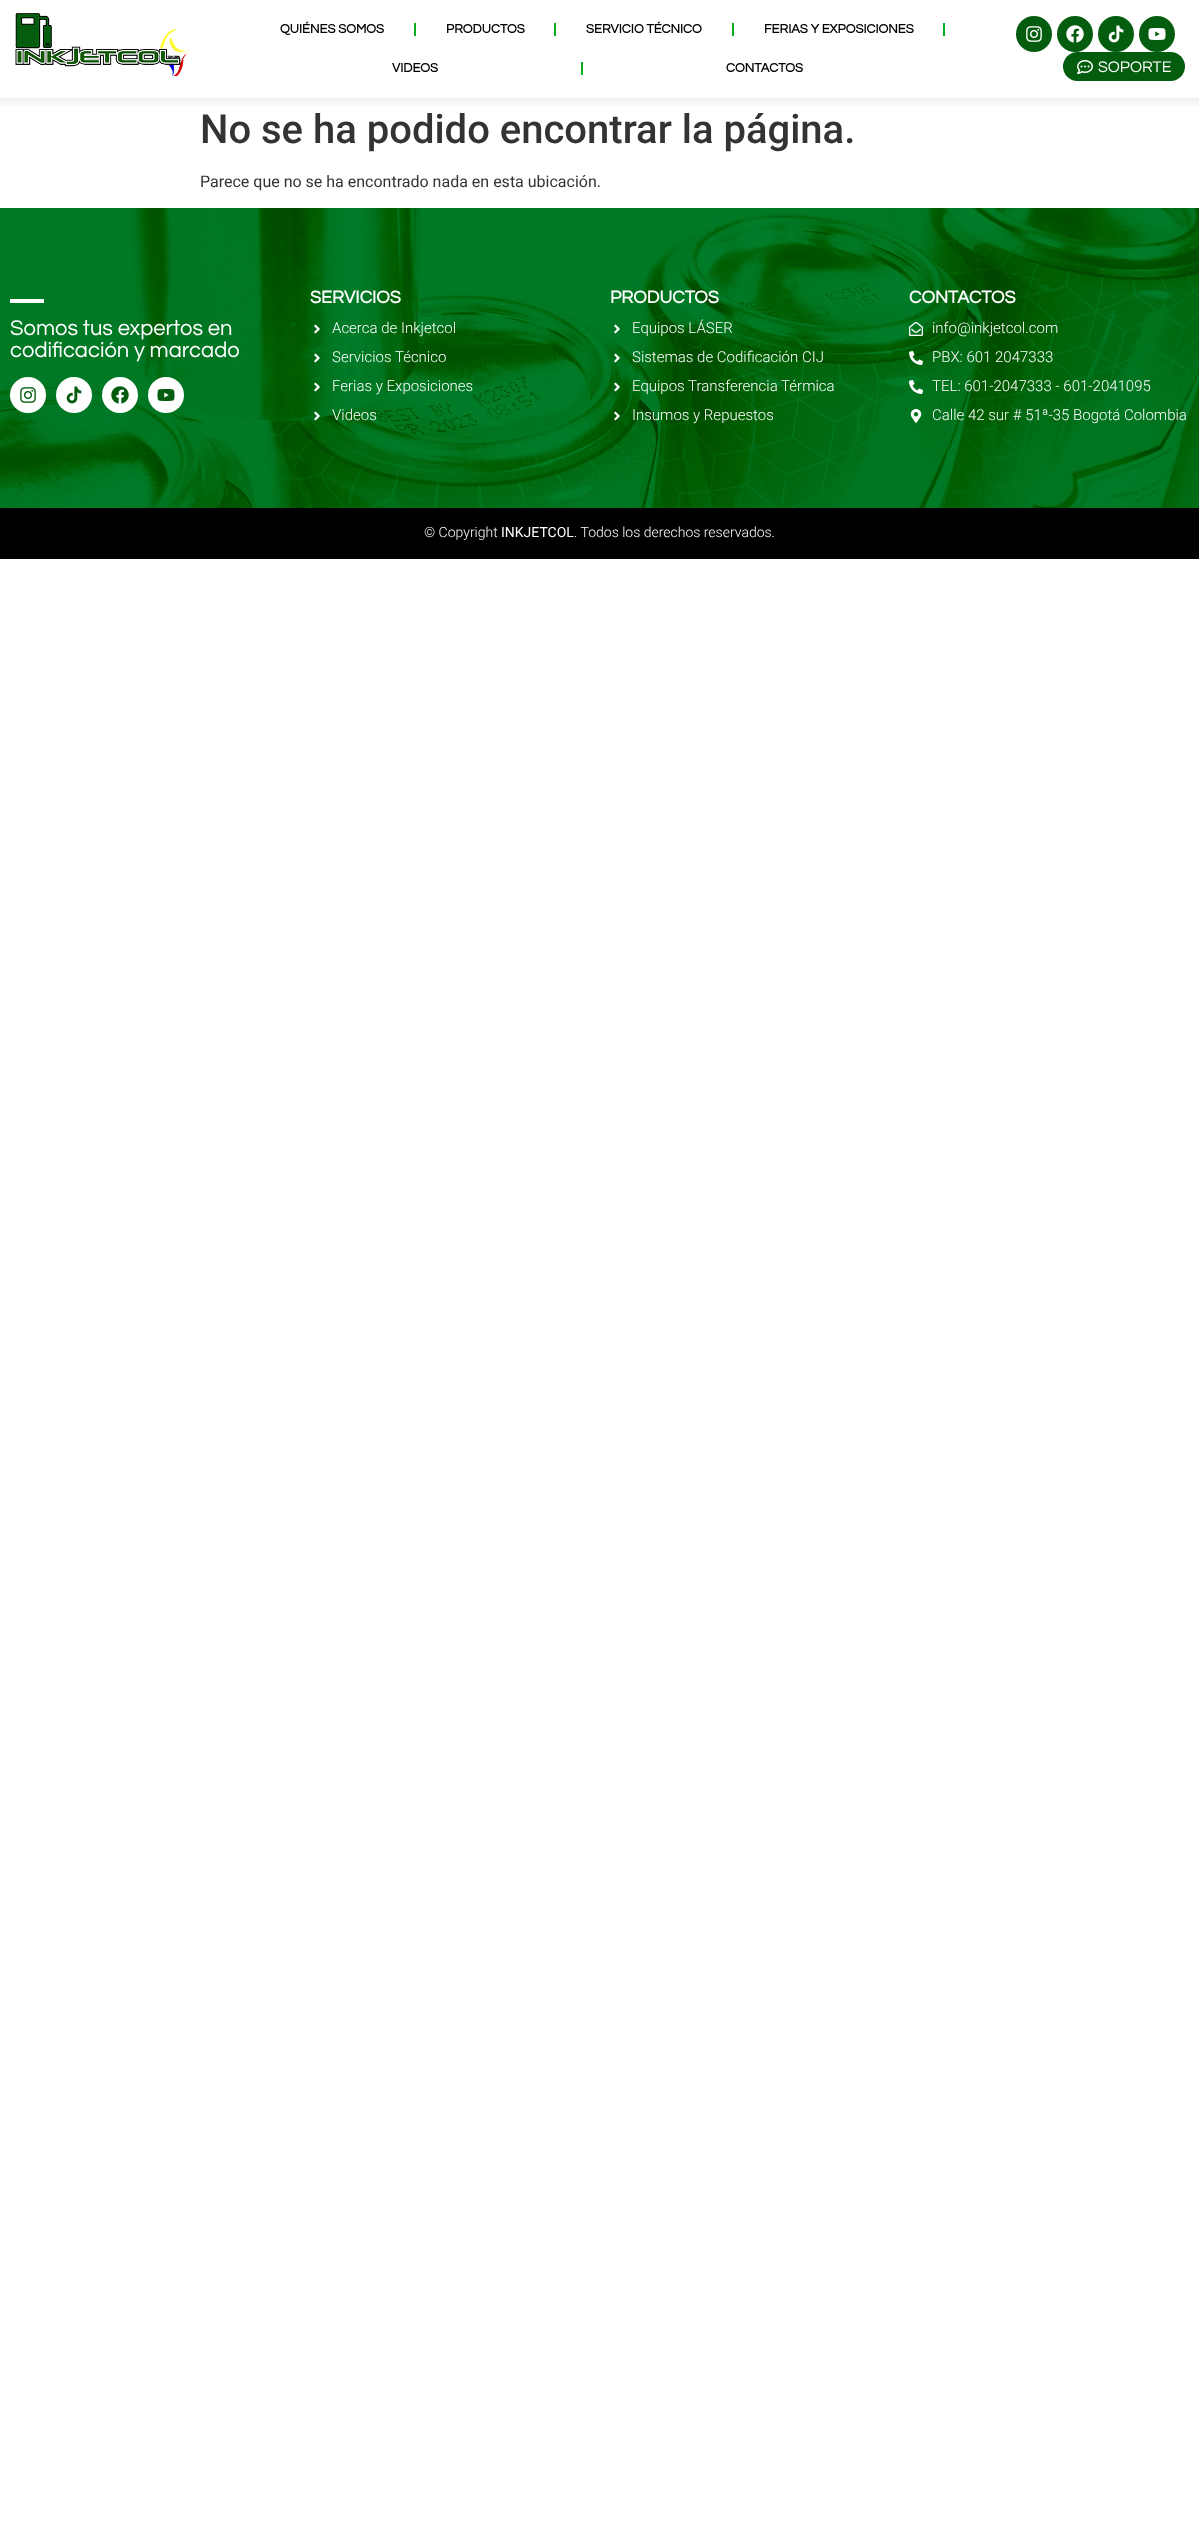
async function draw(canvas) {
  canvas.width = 1199
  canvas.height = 2547
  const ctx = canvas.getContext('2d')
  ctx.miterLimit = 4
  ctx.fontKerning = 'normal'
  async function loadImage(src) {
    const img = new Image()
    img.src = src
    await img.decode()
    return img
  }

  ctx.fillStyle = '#fff'
  ctx.fillRect(0, 0, 1199, 2547)
  ctx.save()
  ctx.beginPath()
  ctx.rect(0, 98, 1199, 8)
  ctx.clip()
  ctx.fillStyle = '#00000012'
  ctx.filter = 'blur(5px)'
  ctx.beginPath()
  ctx.rect(-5, -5, 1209, 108)
  ctx.fill()
  ctx.filter = 'none'
  ctx.restore()
  ctx.drawImage(await loadImage('image0.png'), 15, 13, 175, 63)
  ctx.font = 'bold 13px Questrial'
  ctx.fillStyle = '#000'
  ctx.fillText('QUIÉNES SOMOS', 280, 33)
  ctx.fillStyle = '#0aad1d'
  ctx.fillRect(414, 23, 2, 13)
  ctx.fillStyle = '#000'
  ctx.fillText('PRODUCTOS', 446, 33)
  ctx.fillStyle = '#0aad1d'
  ctx.fillRect(554, 23, 2, 13)
  ctx.fillStyle = '#000'
  ctx.fillText('SERVICIO TÉCNICO', 586, 33)
  ctx.fillStyle = '#0aad1d'
  ctx.fillRect(732, 23, 2, 13)
  ctx.fillStyle = '#000'
  ctx.fillText('FERIAS Y EXPOSICIONES', 764, 33)
  ctx.fillStyle = '#0aad1d'
  ctx.fillRect(943, 23, 2, 13)
  ctx.fillStyle = '#000'
  ctx.fillText('VIDEOS', 392, 72)
  ctx.fillStyle = '#0aad1d'
  ctx.fillRect(581, 62, 2, 13)
  ctx.fillStyle = '#000'
  ctx.fillText('CONTACTOS', 726, 72)
  ctx.fillStyle = '#045c0e'
  ctx.beginPath()
  ctx.arc(1034, 34, 18, 0, 2 * Math.PI)
  ctx.fill()
  ctx.drawImage(await loadImage('image1.png'), 1026, 26, 16, 16)
  ctx.beginPath()
  ctx.arc(1075, 34, 18, 0, 2 * Math.PI)
  ctx.fill()
  ctx.drawImage(await loadImage('image2.png'), 1066, 25, 18, 18)
  ctx.beginPath()
  ctx.arc(1116, 34, 18, 0, 2 * Math.PI)
  ctx.fill()
  ctx.drawImage(await loadImage('image3.png'), 1108, 25, 16, 18)
  ctx.beginPath()
  ctx.arc(1157, 34, 18, 0, 2 * Math.PI)
  ctx.fill()
  ctx.drawImage(await loadImage('image4.png'), 1148, 28, 18, 12)
  ctx.beginPath()
  ctx.roundRect(1063, 52, 122, 29, 14.5)
  ctx.fill()
  ctx.drawImage(await loadImage('image5.png'), 1077, 60, 16, 14)
  ctx.font = '16px Questrial'
  ctx.fillStyle = '#fff'
  ctx.fillText('SOPORTE', 1098, 72)
  ctx.font = '500 40px Roboto'
  ctx.fillStyle = '#333'
  ctx.fillText('No se ha podido encontrar la página.', 200, 143)
  ctx.font = '16px Roboto'
  ctx.fillText('Parece que no se ha encontrado nada en esta ubicación.', 200, 187)
  ctx.drawImage(await loadImage('image6.png'), 0, 208, 1199, 300)
  ctx.fillStyle = '#fff'
  ctx.fillRect(10, 299, 34, 4)
  ctx.font = '22px Questrial'
  ctx.fillText('Somos tus expertos en', 10, 335)
  ctx.fillText('codificación y marcado', 10, 357)
  ctx.beginPath()
  ctx.arc(28, 395, 18, 0, 2 * Math.PI)
  ctx.fill()
  ctx.drawImage(await loadImage('image7.png'), 20, 387, 16, 16)
  ctx.beginPath()
  ctx.arc(74, 395, 18, 0, 2 * Math.PI)
  ctx.fill()
  ctx.drawImage(await loadImage('image8.png'), 66, 386, 16, 18)
  ctx.beginPath()
  ctx.arc(120, 395, 18, 0, 2 * Math.PI)
  ctx.fill()
  ctx.drawImage(await loadImage('image9.png'), 111, 386, 18, 18)
  ctx.beginPath()
  ctx.arc(166, 395, 18, 0, 2 * Math.PI)
  ctx.fill()
  ctx.drawImage(await loadImage('image10.png'), 157, 389, 18, 12)
  ctx.font = 'bold 18px Questrial'
  ctx.fillText('SERVICIOS', 310, 303)
  ctx.drawImage(await loadImage('image11.png'), 314, 324, 6, 10)
  ctx.font = '300 15px Roboto'
  ctx.fillText('Acerca de Inkjetcol', 332, 333)
  ctx.drawImage(await loadImage('image12.png'), 314, 353, 6, 10)
  ctx.fillText('Servicios Técnico', 332, 362)
  ctx.drawImage(await loadImage('image13.png'), 314, 382, 6, 10)
  ctx.fillText('Ferias y Exposiciones', 332, 391)
  ctx.drawImage(await loadImage('image14.png'), 314, 411, 6, 10)
  ctx.fillText('Videos', 332, 420)
  ctx.font = 'bold 18px Questrial'
  ctx.fillText('PRODUCTOS', 610, 303)
  ctx.drawImage(await loadImage('image15.png'), 614, 324, 6, 10)
  ctx.font = '300 15px Roboto'
  ctx.fillText('Equipos LÁSER', 632, 333)
  ctx.drawImage(await loadImage('image16.png'), 614, 353, 6, 10)
  ctx.fillText('Sistemas de Codificación CIJ', 632, 362)
  ctx.drawImage(await loadImage('image17.png'), 614, 382, 6, 10)
  ctx.fillText('Equipos Transferencia Térmica', 632, 391)
  ctx.drawImage(await loadImage('image18.png'), 614, 411, 6, 10)
  ctx.fillText('Insumos y Repuestos', 632, 420)
  ctx.font = 'bold 18px Questrial'
  ctx.fillText('CONTACTOS', 909, 303)
  ctx.drawImage(await loadImage('image19.png'), 909, 322, 14, 14)
  ctx.font = '300 15px Roboto'
  ctx.fillText('info@inkjetcol.com', 932, 333)
  ctx.drawImage(await loadImage('image20.png'), 909, 351, 14, 14)
  ctx.fillText('PBX: 601 2047333', 932, 362)
  ctx.drawImage(await loadImage('image21.png'), 909, 380, 14, 14)
  ctx.fillText('TEL: 601-2047333 - 601-2041095', 932, 391)
  ctx.drawImage(await loadImage('image22.png'), 910, 409, 12, 14)
  ctx.fillText('Calle 42 sur # 51ª-35 Bogotá Colombia', 932, 420)
  ctx.fillStyle = '#000'
  ctx.fillRect(0, 508, 1199, 51)
  ctx.font = '300 14px Roboto'
  ctx.fillStyle = '#fff'
  ctx.fillText('© Copyright', 424, 537)
  ctx.font = '14px Roboto'
  ctx.fillText('INKJETCOL', 501, 537)
  ctx.font = '300 14px Roboto'
  ctx.fillText('. Todos los derechos reservados.', 574, 537)
}

draw(document.querySelector('canvas'))
